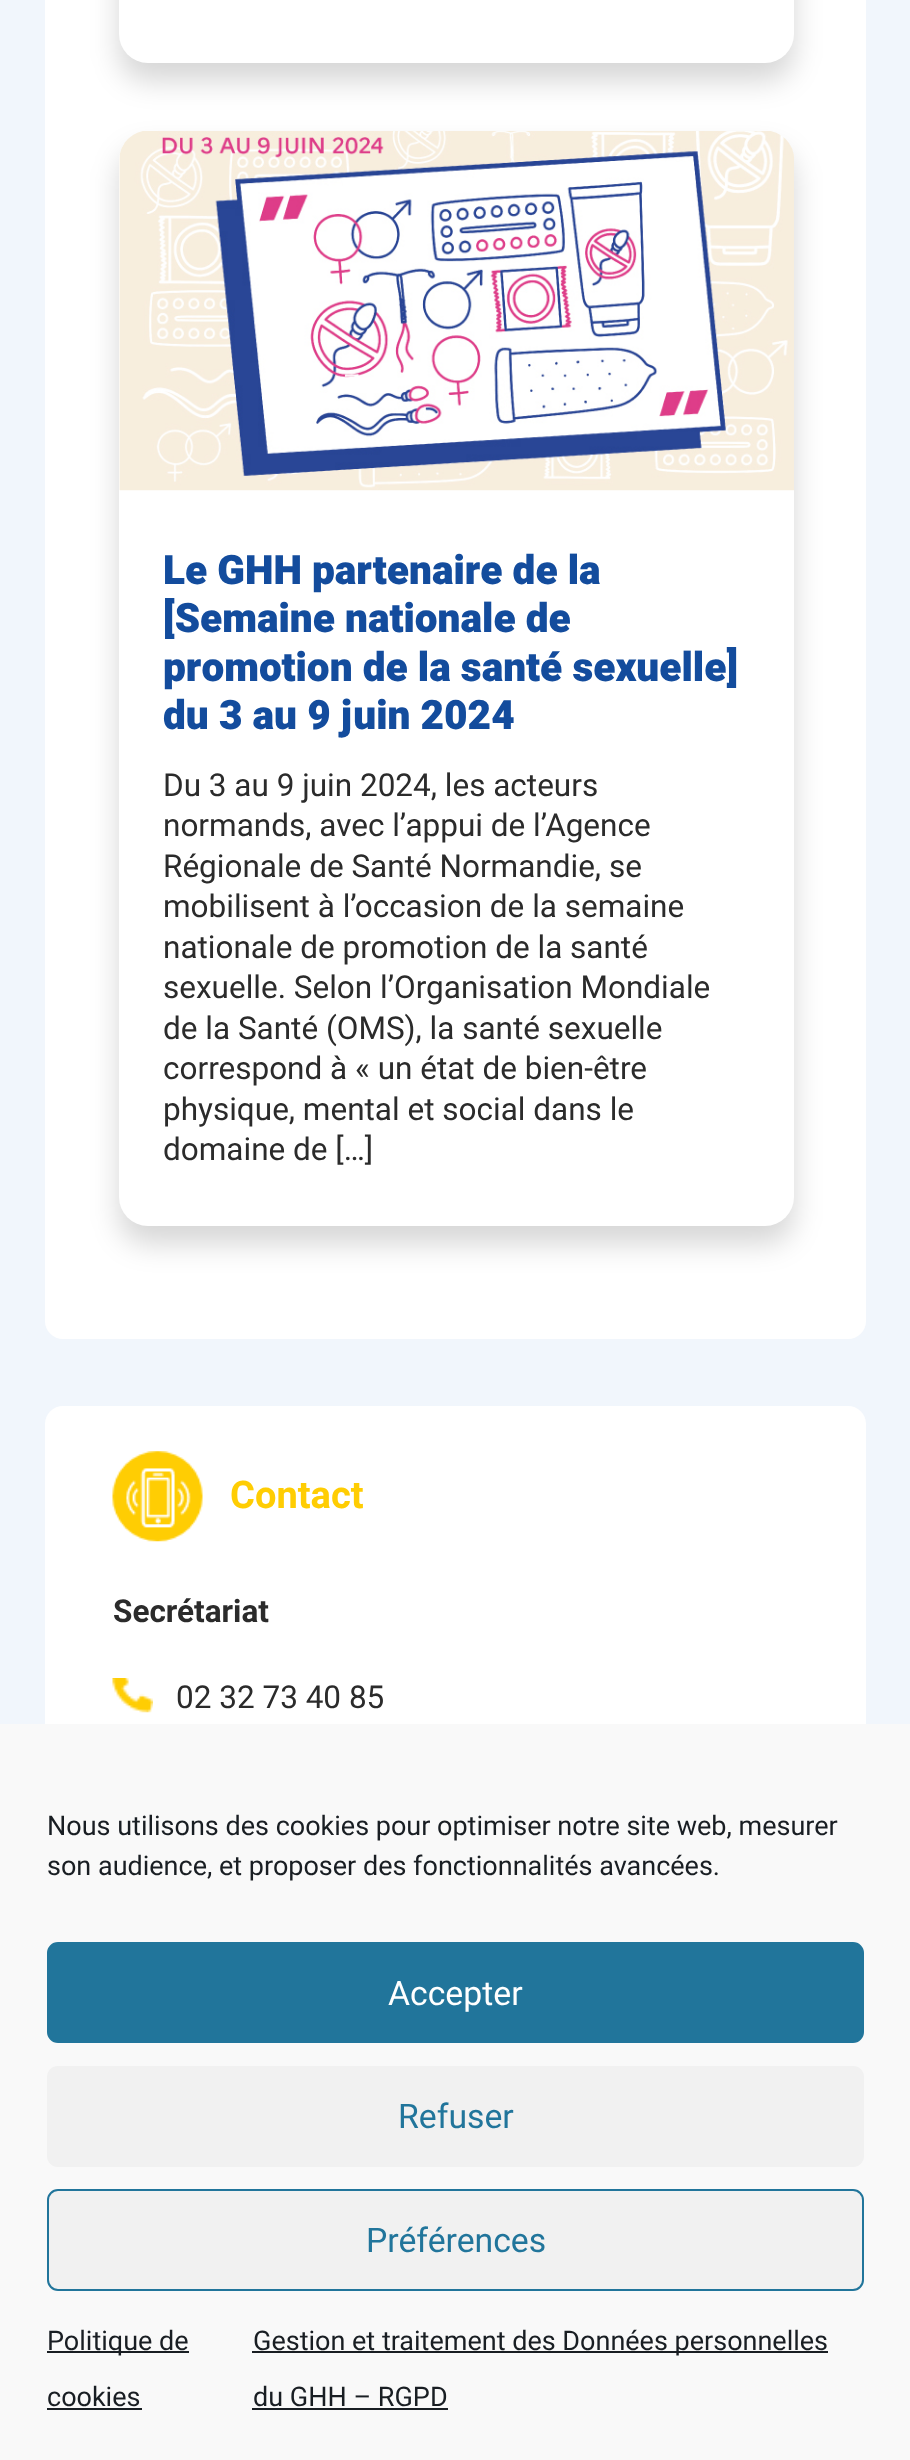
async function draw(canvas) {
  canvas.width = 910
  canvas.height = 2460
  const ctx = canvas.getContext('2d')
  ctx.miterLimit = 4
  ctx.fontKerning = 'normal'
  async function loadImage(src) {
    const img = new Image()
    img.src = src
    await img.decode()
    return img
  }

  ctx.fillStyle = '#f1f6fc'
  ctx.fillRect(0, 0, 910, 2460)
  ctx.fillStyle = '#fff'
  ctx.beginPath()
  ctx.roundRect(45, -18, 821, 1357, 18)
  ctx.fill()
  ctx.fillStyle = '#00000029'
  ctx.filter = 'blur(14.5px)'
  ctx.beginPath()
  ctx.roundRect(119, -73, 675, 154, 29)
  ctx.fill()
  ctx.filter = 'none'
  ctx.fillStyle = '#fff'
  ctx.beginPath()
  ctx.roundRect(119, -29, 675, 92, 29)
  ctx.fill()
  ctx.fillStyle = '#00000029'
  ctx.filter = 'blur(14.5px)'
  ctx.beginPath()
  ctx.roundRect(119, 149, 675, 1095, 29)
  ctx.fill()
  ctx.filter = 'none'
  ctx.fillStyle = '#fff'
  ctx.beginPath()
  ctx.roundRect(119, 131, 675, 1095, 29)
  ctx.fill()
  ctx.drawImage(await loadImage('image0.png'), 119, 131, 675, 360)
  ctx.font = '900 40.5px Heebo'
  ctx.fillStyle = '#134c9d'
  ctx.fillText('Le GHH partenaire de la', 163, 584)
  ctx.fillText('[Semaine nationale de', 163, 632)
  ctx.fillText('promotion de la santé sexuelle]', 163, 681)
  ctx.fillText('du 3 au 9 juin 2024', 163, 729)
  ctx.font = '31.5px Roboto'
  ctx.fillStyle = '#2b2b2b'
  ctx.fillText('Du 3 au 9 juin 2024, les acteurs', 163, 796)
  ctx.fillText('normands, avec l’appui de l’Agence', 163, 836)
  ctx.fillText('Régionale de Santé Normandie, se', 163, 877)
  ctx.fillText('mobilisent à l’occasion de la semaine', 163, 917)
  ctx.fillText('nationale de promotion de la santé', 163, 958)
  ctx.fillText('sexuelle. Selon l’Organisation Mondiale', 163, 998)
  ctx.fillText('de la Santé (OMS), la santé sexuelle', 163, 1039)
  ctx.fillText('correspond à « un état de bien-être', 163, 1079)
  ctx.fillText('physique, mental et social dans le', 163, 1120)
  ctx.fillText('domaine de […]', 163, 1160)
  ctx.fillStyle = '#fff'
  ctx.beginPath()
  ctx.roundRect(45, 1406, 821, 423, 18)
  ctx.fill()
  ctx.drawImage(await loadImage('image1.png'), 112, 1451, 91, 91)
  ctx.font = 'bold 38px Heebo'
  ctx.fillStyle = '#ffcd03'
  ctx.fillText('Contact', 230, 1508)
  ctx.font = 'bold 31.5px Roboto'
  ctx.fillStyle = '#2b2b2b'
  ctx.fillText('Secrétariat', 113, 1622)
  ctx.drawImage(await loadImage('image2.png'), 112, 1678, 41, 35)
  ctx.font = '31.5px Roboto'
  ctx.fillText('02 32 73 40 85', 176, 1708)
  ctx.fillStyle = '#f9f9f9'
  ctx.fillRect(0, 1724, 910, 736)
  ctx.font = '27px Roboto'
  ctx.fillStyle = '#191e23'
  ctx.fillText('Nous utilisons des cookies pour optimiser notre site web, mesurer', 47, 1835)
  ctx.fillText('son audience, et proposer des fonctionnalités avancées.', 47, 1875)
  ctx.fillStyle = '#21759b'
  ctx.beginPath()
  ctx.roundRect(48, 1943, 815, 99, 10)
  ctx.fill()
  ctx.strokeStyle = '#21759b'
  ctx.lineWidth = 2
  ctx.stroke()
  ctx.font = '33.75px Roboto'
  ctx.fillStyle = '#fff'
  ctx.fillText('Accepter', 388, 2005)
  ctx.fillStyle = '#f1f1f1'
  ctx.beginPath()
  ctx.roundRect(47, 2066, 817, 101, 11)
  ctx.fill()
  ctx.fillStyle = '#21759b'
  ctx.fillText('Refuser', 398, 2128)
  ctx.fillStyle = '#f1f1f1'
  ctx.beginPath()
  ctx.roundRect(48, 2190, 815, 100, 10)
  ctx.fill()
  ctx.stroke()
  ctx.fillStyle = '#21759b'
  ctx.fillText('Préférences', 366, 2252)
  ctx.fillStyle = '#191e23'
  ctx.fillRect(47, 2351, 142, 2)
  ctx.font = '27px Roboto'
  ctx.fillText('Politique de', 47, 2350)
  ctx.fillText('cookies', 47, 2406)
  ctx.fillRect(47, 2408, 95, 2)
  ctx.fillRect(252, 2351, 576, 2)
  ctx.fillText('Gestion et traitement des Données personnelles', 253, 2350)
  ctx.fillText('du GHH – RGPD', 253, 2406)
  ctx.fillRect(252, 2408, 196, 2)
}

draw(document.querySelector('canvas'))
